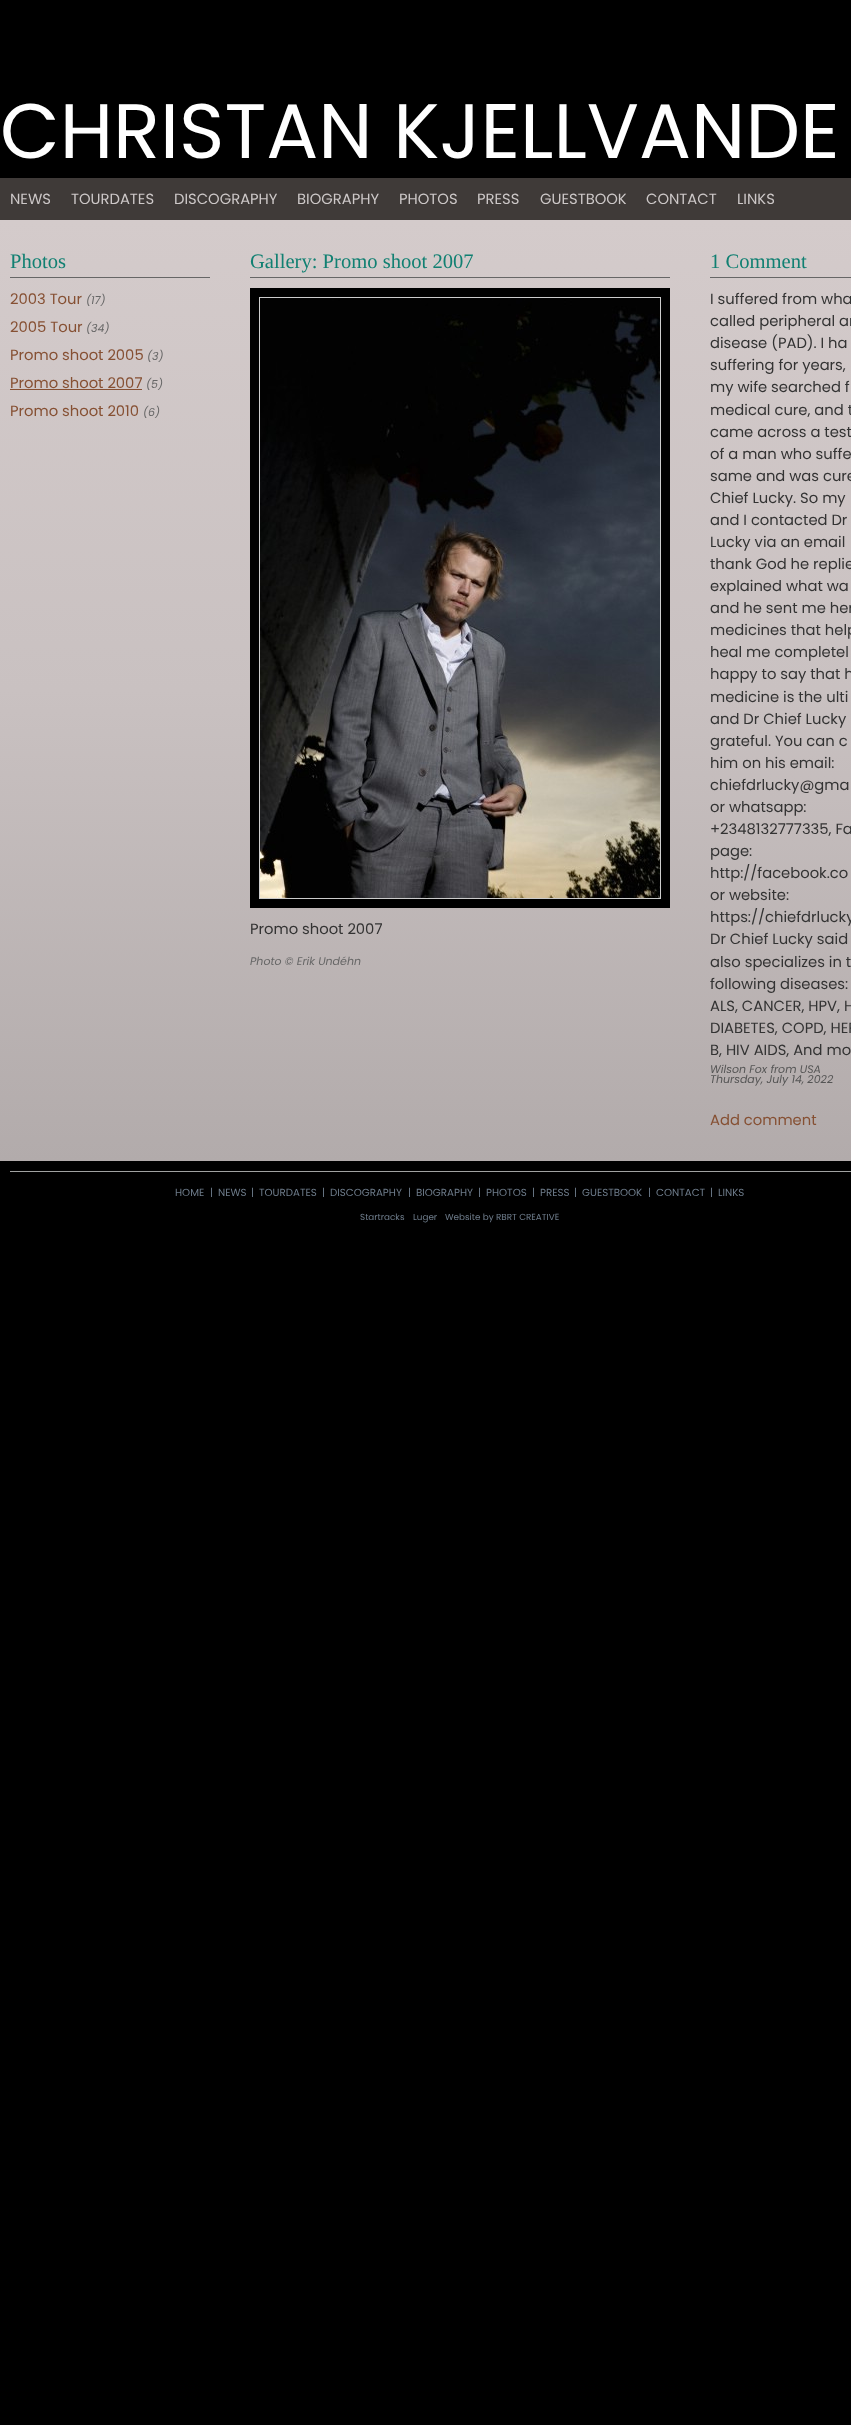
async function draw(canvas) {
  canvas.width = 851
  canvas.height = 2425
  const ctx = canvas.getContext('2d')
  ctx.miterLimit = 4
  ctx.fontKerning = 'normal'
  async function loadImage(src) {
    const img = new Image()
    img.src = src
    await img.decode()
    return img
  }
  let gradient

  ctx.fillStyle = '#000'
  ctx.fillRect(0, 0, 851, 2425)
  ctx.font = '77.25px Poppins'
  ctx.fillStyle = '#fff'
  ctx.fillText('CHRISTAN KJELLVANDE', 0, 158)
  ctx.fillStyle = '#3f3a38'
  ctx.fillRect(0, 178, 851, 42)
  ctx.font = '14.75px Poppins'
  ctx.fillStyle = '#cdc8c8'
  ctx.fillText('NEWS', 10, 204)
  ctx.fillText('TOURDATES', 71, 204)
  ctx.fillText('DISCOGRAPHY', 174, 204)
  ctx.fillText('BIOGRAPHY', 297, 204)
  ctx.fillText('PHOTOS', 399, 204)
  ctx.fillText('PRESS', 477, 204)
  ctx.fillText('GUESTBOOK', 540, 204)
  ctx.fillText('CONTACT', 646, 204)
  ctx.fillText('LINKS', 737, 204)
  gradient = ctx.createLinearGradient(460, 220, 460, 1161)
  gradient.addColorStop(0, '#d4cbcb')
  gradient.addColorStop(0.5, '#c9c1c1')
  gradient.addColorStop(1, '#b2abab')
  ctx.fillStyle = gradient
  ctx.fillRect(0, 220, 851, 941)
  ctx.fillStyle = '#666'
  ctx.fillRect(10, 277, 200, 1)
  ctx.font = '20.6px Liberation Serif'
  ctx.fillStyle = '#118072'
  ctx.fillText('Photos', 10, 268)
  ctx.font = '14.75px Poppins'
  ctx.fillStyle = '#865033'
  ctx.fillText('2003 Tour', 10, 304)
  ctx.font = 'italic 11px Poppins'
  ctx.fillStyle = '#666'
  ctx.fillText('(17)', 86, 304)
  ctx.font = '14.75px Poppins'
  ctx.fillStyle = '#865033'
  ctx.fillText('2005 Tour', 10, 332)
  ctx.font = 'italic 11px Poppins'
  ctx.fillStyle = '#666'
  ctx.fillText('(34)', 86, 332)
  ctx.font = '14.75px Poppins'
  ctx.fillStyle = '#865033'
  ctx.fillText('Promo shoot 2005', 10, 360)
  ctx.font = 'italic 11px Poppins'
  ctx.fillStyle = '#666'
  ctx.fillText('(3)', 147, 360)
  ctx.font = '14.75px Poppins'
  ctx.fillStyle = '#865033'
  ctx.fillText('Promo shoot 2007', 10, 388)
  ctx.fillRect(10, 389, 132, 1)
  ctx.font = 'italic 11px Poppins'
  ctx.fillStyle = '#666'
  ctx.fillText('(5)', 146, 388)
  ctx.font = '14.75px Poppins'
  ctx.fillStyle = '#865033'
  ctx.fillText('Promo shoot 2010', 10, 416)
  ctx.font = 'italic 11px Poppins'
  ctx.fillStyle = '#666'
  ctx.fillText('(6)', 143, 416)
  ctx.fillRect(250, 277, 420, 1)
  ctx.font = '20.6px Liberation Serif'
  ctx.fillStyle = '#118072'
  ctx.fillText('Gallery: Promo shoot 2007', 250, 268)
  ctx.fillStyle = '#ccc'
  ctx.beginPath()
  ctx.rect(254.5, 292.5, 411, 611)
  ctx.fill()
  ctx.strokeStyle = '#000'
  ctx.lineWidth = 9
  ctx.stroke()
  ctx.drawImage(await loadImage('image0.png'), 260, 298, 400, 600)
  ctx.font = '14.75px Poppins'
  ctx.fillStyle = '#333'
  ctx.fillText('Promo shoot 2007', 250, 934)
  ctx.font = 'italic 11px Poppins'
  ctx.fillStyle = '#666'
  ctx.fillText('Photo © Erik Undéhn', 250, 965)
  ctx.fillRect(710, 277, 141, 1)
  ctx.font = '20.6px Liberation Serif'
  ctx.fillStyle = '#118072'
  ctx.fillText('1 Comment', 710, 268)
  ctx.font = '14.75px Poppins'
  ctx.fillStyle = '#333'
  ctx.fillText('I suffered from wha', 710, 304)
  ctx.fillText('called peripheral ar', 710, 326)
  ctx.fillText('disease (PAD). I ha', 710, 348)
  ctx.fillText('suffering for years,', 710, 370)
  ctx.fillText('my wife searched f', 710, 392)
  ctx.fillText('medical cure, and t', 710, 415)
  ctx.fillText('came across a test', 710, 437)
  ctx.fillText('of a man who suffe', 710, 459)
  ctx.fillText('same and was cure', 710, 481)
  ctx.fillText('Chief Lucky. So my', 710, 503)
  ctx.fillText('and I contacted Dr', 710, 525)
  ctx.fillText('Lucky via an email', 710, 547)
  ctx.fillText('thank God he replie', 710, 569)
  ctx.fillText('explained what wa', 710, 591)
  ctx.fillText('and he sent me her', 710, 613)
  ctx.fillText('medicines that help', 710, 635)
  ctx.fillText('heal me completel', 710, 657)
  ctx.fillText('happy to say that h', 710, 679)
  ctx.fillText('medicine is the ulti', 710, 702)
  ctx.fillText('and Dr Chief Lucky', 710, 724)
  ctx.fillText('grateful. You can c', 710, 746)
  ctx.fillText('him on his email:', 710, 768)
  ctx.fillText('chiefdrlucky@gma', 710, 790)
  ctx.fillText('or whatsapp:', 710, 812)
  ctx.fillText('+2348132777335, Fa', 710, 834)
  ctx.fillText('page:', 710, 856)
  ctx.fillText('http://facebook.co', 710, 878)
  ctx.fillText('or website:', 710, 900)
  ctx.fillText('https://chiefdrlucky', 710, 922)
  ctx.fillText('Dr Chief Lucky said', 710, 944)
  ctx.fillText('also specializes in t', 710, 967)
  ctx.fillText('following diseases:', 710, 989)
  ctx.fillText('ALS, CANCER, HPV, H', 710, 1011)
  ctx.fillText('DIABETES, COPD, HEP', 710, 1033)
  ctx.fillText('B, HIV AIDS, And mo', 710, 1055)
  ctx.font = 'italic 11px Poppins'
  ctx.fillStyle = '#555'
  ctx.fillText('Wilson Fox from USA', 710, 1073)
  ctx.fillText('Thursday, July 14, 2022', 710, 1083)
  ctx.font = '14.75px Poppins'
  ctx.fillStyle = '#865033'
  ctx.fillText('Add comment', 710, 1125)
  ctx.fillStyle = '#a0a2a1'
  ctx.fillRect(10, 1171, 841, 1)
  ctx.font = '10.25px Poppins'
  ctx.fillStyle = '#6e7c8b'
  ctx.fillText('HOME', 175, 1196)
  ctx.fillText('|', 210, 1196)
  ctx.fillText('NEWS', 218, 1196)
  ctx.fillText('|', 251, 1196)
  ctx.fillText('TOURDATES', 259, 1196)
  ctx.fillText('|', 322, 1196)
  ctx.fillText('DISCOGRAPHY', 330, 1196)
  ctx.fillText('|', 408, 1196)
  ctx.fillText('BIOGRAPHY', 416, 1196)
  ctx.fillText('|', 478, 1196)
  ctx.fillText('PHOTOS', 486, 1196)
  ctx.fillText('|', 532, 1196)
  ctx.fillText('PRESS', 540, 1196)
  ctx.fillText('|', 574, 1196)
  ctx.fillText('GUESTBOOK', 582, 1196)
  ctx.fillText('|', 648, 1196)
  ctx.fillText('CONTACT', 656, 1196)
  ctx.fillText('|', 710, 1196)
  ctx.fillText('LINKS', 718, 1196)
  ctx.font = '8.8px Poppins'
  ctx.fillText('Startracks', 360, 1220)
  ctx.fillText('Luger', 413, 1220)
  ctx.fillText('Website by RBRT CREATIVE', 445, 1220)
}

draw(document.querySelector('canvas'))
